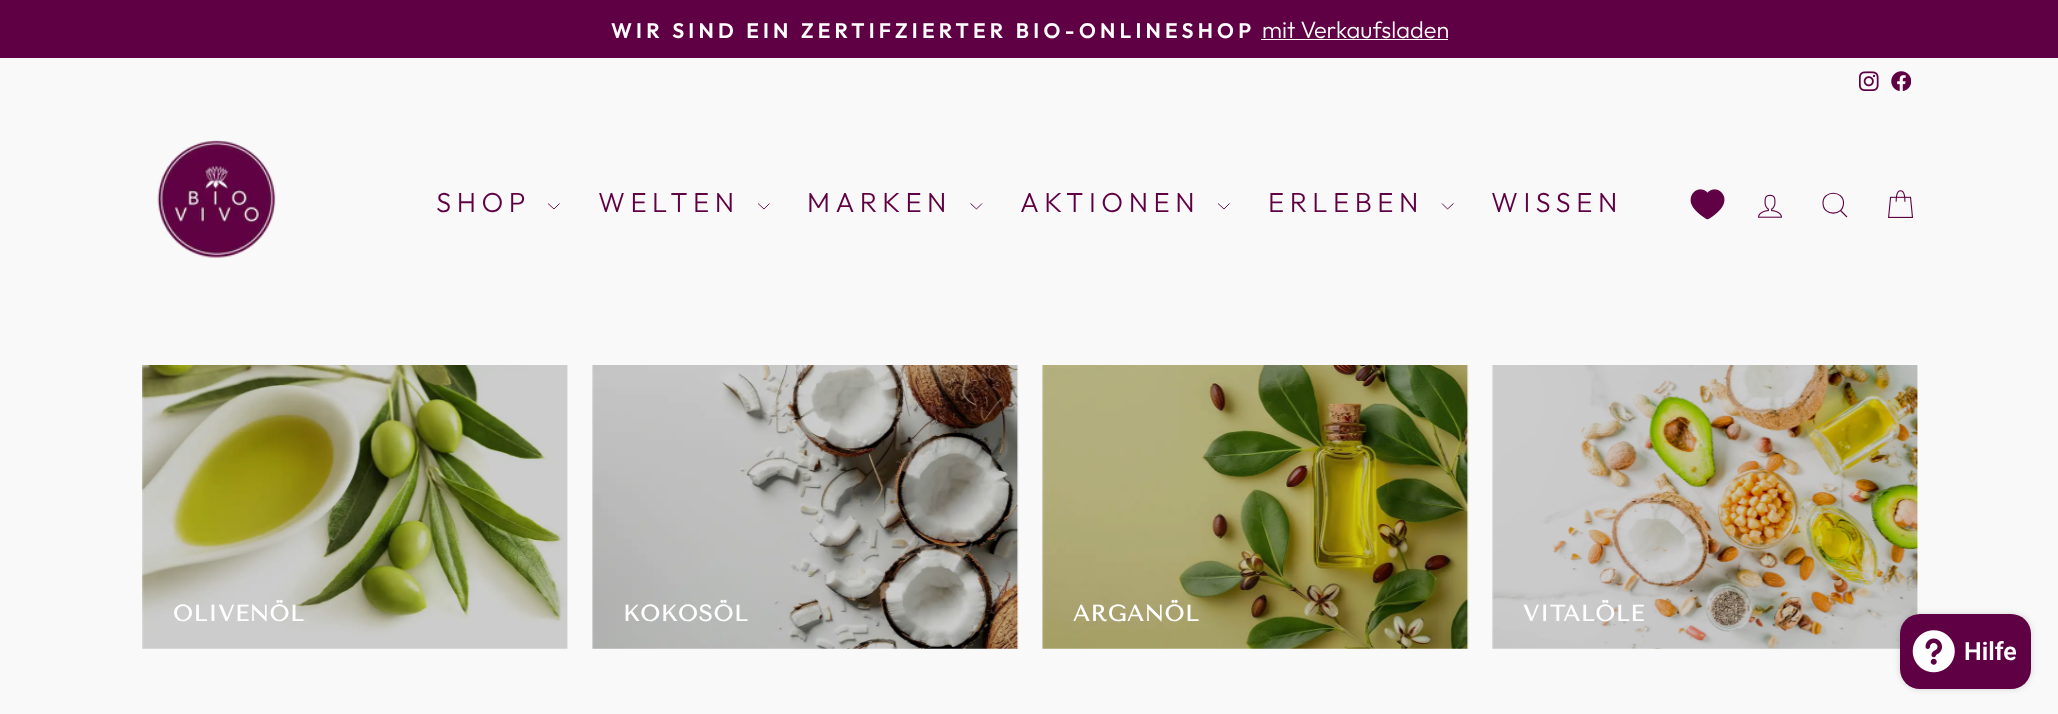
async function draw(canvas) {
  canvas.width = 2058
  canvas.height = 714
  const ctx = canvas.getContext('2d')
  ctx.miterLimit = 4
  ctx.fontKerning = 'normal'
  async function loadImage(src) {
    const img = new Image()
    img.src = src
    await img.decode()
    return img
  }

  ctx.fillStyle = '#f9f9f9'
  ctx.fillRect(0, 0, 2058, 714)
  ctx.fillStyle = '#600044'
  ctx.fillRect(0, 0, 2058, 58)
  ctx.letterSpacing = '4.2px'
  ctx.font = '600 21.05px Outfit'
  ctx.fillStyle = '#fff'
  ctx.fillText('WIR SIND EIN ZERTIFZIERTER BIO-ONLINESHOP', 611, 38)
  ctx.letterSpacing = '0px'
  ctx.font = '300 23.5px Outfit'
  ctx.fillText('mit Verkaufsladen', 1262, 38)
  ctx.fillRect(1261, 39, 187, 1)
  ctx.drawImage(await loadImage('image0.png'), 1859, 71, 20, 20)
  ctx.drawImage(await loadImage('image1.png'), 1891, 71, 20, 20)
  ctx.fillStyle = '#00000033'
  ctx.filter = 'blur(0.5px)'
  ctx.beginPath()
  ctx.rect(0, 103, 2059, 200)
  ctx.fill()
  ctx.filter = 'none'
  ctx.fillStyle = '#f9f9f9'
  ctx.fillRect(0, 103, 2058, 200)
  ctx.drawImage(await loadImage('image2.png'), 157, 140, 119, 118)
  ctx.letterSpacing = '5.5px'
  ctx.font = '300 27.5px Outfit'
  ctx.fillStyle = '#600044'
  ctx.fillText('SHOP', 436, 212)
  ctx.beginPath()
  ctx.moveTo(548, 203.5)
  ctx.lineTo(554, 209)
  ctx.lineTo(559.5, 203.5)
  ctx.strokeStyle = '#600044'
  ctx.lineWidth = 0.9
  ctx.stroke()
  ctx.fillText('WELTEN', 598, 212)
  ctx.beginPath()
  ctx.moveTo(758, 203.5)
  ctx.lineTo(764, 209)
  ctx.lineTo(769.5, 203.5)
  ctx.stroke()
  ctx.fillText('MARKEN', 807, 212)
  ctx.beginPath()
  ctx.moveTo(970.5, 203.5)
  ctx.lineTo(976.5, 209)
  ctx.lineTo(982, 203.5)
  ctx.stroke()
  ctx.fillText('AKTIONEN', 1020, 212)
  ctx.beginPath()
  ctx.moveTo(1218, 203.5)
  ctx.lineTo(1224, 209)
  ctx.lineTo(1229.5, 203.5)
  ctx.stroke()
  ctx.fillText('ERLEBEN', 1268, 212)
  ctx.beginPath()
  ctx.moveTo(1442, 203.5)
  ctx.lineTo(1447.5, 209)
  ctx.lineTo(1453.5, 203.5)
  ctx.stroke()
  ctx.fillText('WISSEN', 1491, 212)
  ctx.drawImage(await loadImage('image3.png'), 1690, 189, 35, 31)
  ctx.drawImage(await loadImage('image4.png'), 1758, 194, 24, 24)
  ctx.beginPath()
  ctx.moveTo(1843.5, 203)
  ctx.bezierCurveTo(1843.5, 216.5, 1823, 216.5, 1823, 203)
  ctx.bezierCurveTo(1823, 190, 1843.5, 190, 1843.5, 203)
  ctx.closePath()
  ctx.moveTo(1847, 217)
  ctx.lineTo(1840.5, 210.5)
  ctx.lineWidth = 1.1
  ctx.stroke()
  ctx.drawImage(await loadImage('image5.png'), 1888, 190, 26, 28)
  ctx.drawImage(await loadImage('image6.png'), 142, 365, 426, 284)
  ctx.letterSpacing = '1px'
  ctx.font = 'bold 22.5px Tenor Sans'
  ctx.fillStyle = '#fff'
  ctx.fillText('OLIVENÖL', 173, 621)
  ctx.drawImage(await loadImage('image7.png'), 592, 365, 427, 284)
  ctx.fillText('KOKOSÖL', 623, 621)
  ctx.drawImage(await loadImage('image8.png'), 1042, 365, 427, 284)
  ctx.fillText('ARGANÖL', 1073, 621)
  ctx.drawImage(await loadImage('image9.png'), 1492, 365, 426, 284)
  ctx.fillText('VITALÖLE', 1523, 621)
  ctx.fillStyle = '#00000026'
  ctx.filter = 'blur(3px)'
  ctx.beginPath()
  ctx.roundRect(1900, 614, 131, 75, 20)
  ctx.fill()
  ctx.filter = 'none'
  ctx.fillStyle = '#600044'
  ctx.beginPath()
  ctx.roundRect(1900, 614, 131, 75, 20)
  ctx.fill()
  ctx.drawImage(await loadImage('image10.png'), 1912, 630, 43, 43)
  ctx.letterSpacing = '0px'
  ctx.font = '600 25px Roboto'
  ctx.fillStyle = '#fff'
  ctx.fillText('Hilfe', 1964, 660)
}

draw(document.querySelector('canvas'))
